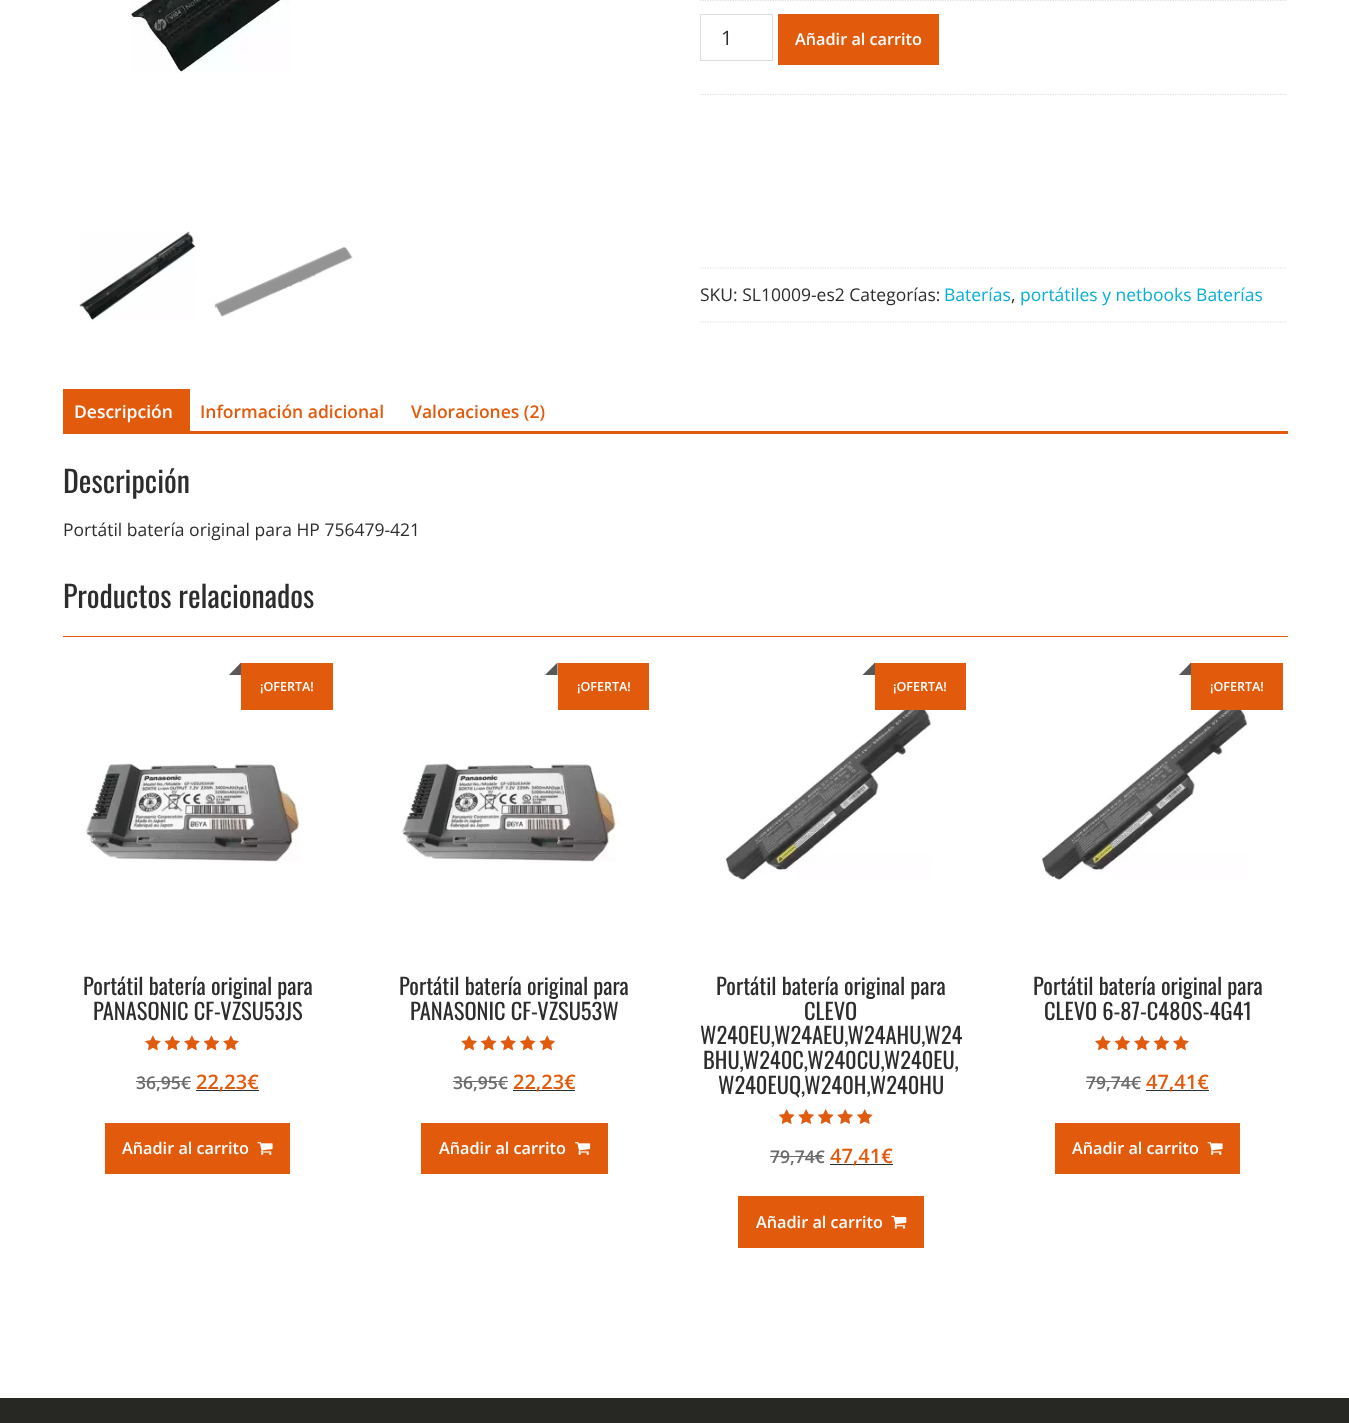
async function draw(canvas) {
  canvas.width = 1349
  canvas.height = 1423
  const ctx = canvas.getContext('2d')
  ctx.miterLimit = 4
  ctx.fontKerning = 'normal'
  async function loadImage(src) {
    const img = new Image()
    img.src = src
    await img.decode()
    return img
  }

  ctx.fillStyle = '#fff'
  ctx.fillRect(0, 0, 1349, 1423)
  ctx.drawImage(await loadImage('image0.png'), 130, 0, 160, 73)
  ctx.drawImage(await loadImage('image1.png'), 79, 231, 117, 90)
  ctx.drawImage(await loadImage('image2.png'), 214, 247, 139, 70)
  ctx.beginPath()
  ctx.moveTo(700, 0.5)
  ctx.lineTo(1287.5, 0.5)
  ctx.strokeStyle = '#ddd'
  ctx.lineWidth = 1.2
  ctx.setLineDash([1.25, 1.25])
  ctx.stroke()
  ctx.beginPath()
  ctx.moveTo(700, 94.5)
  ctx.lineTo(1287.5, 94.5)
  ctx.stroke()
  ctx.lineWidth = 1
  ctx.setLineDash([])
  ctx.strokeRect(700.5, 14.5, 72, 46)
  ctx.font = '20px Open Sans'
  ctx.fillStyle = '#2d2d2d'
  ctx.fillText('1', 721, 45)
  ctx.fillStyle = '#e25a0b'
  ctx.fillRect(778, 14, 161, 51)
  ctx.font = '600 16.25px Open Sans'
  ctx.fillStyle = '#fff'
  ctx.fillText('Añadir al carrito', 795, 45)
  ctx.beginPath()
  ctx.moveTo(700, 268)
  ctx.lineTo(1287.5, 268)
  ctx.lineWidth = 1.2
  ctx.setLineDash([1.25, 1.25])
  ctx.stroke()
  ctx.beginPath()
  ctx.moveTo(700, 322)
  ctx.lineTo(1287.5, 322)
  ctx.stroke()
  ctx.font = '17.5px Open Sans'
  ctx.fillStyle = '#2d2d2d'
  ctx.fillText('SKU: SL10009-es2 Categorías:', 700, 301)
  ctx.fillStyle = '#07afd4'
  ctx.fillText('Baterías', 944, 301)
  ctx.fillStyle = '#2d2d2d'
  ctx.fillText(',', 1011, 301)
  ctx.fillStyle = '#07afd4'
  ctx.fillText('portátiles y netbooks Baterías', 1020, 301)
  ctx.fillStyle = '#e25a0b'
  ctx.fillRect(63, 389, 127, 45)
  ctx.font = '600 17.5px Open Sans'
  ctx.fillStyle = '#fff'
  ctx.fillText('Descripción', 74, 418)
  ctx.fillStyle = '#e25a0b'
  ctx.fillText('Información adicional', 200, 418)
  ctx.fillText('Valoraciones (2)', 411, 418)
  ctx.fillRect(190, 431, 1098, 3)
  ctx.font = '30px Oswald'
  ctx.fillStyle = '#2d2d2d'
  ctx.fillText('Descripción', 63, 493)
  ctx.font = '17.5px Open Sans'
  ctx.fillText('Portátil batería original para HP 756479-421', 63, 536)
  ctx.fillStyle = '#e25a0b'
  ctx.fillRect(63, 636, 1225, 1)
  ctx.font = '30px Oswald'
  ctx.fillStyle = '#2d2d2d'
  ctx.fillText('Productos relacionados', 63, 608)
  ctx.fillStyle = '#e25a0b'
  ctx.fillRect(241, 663, 92, 47)
  ctx.fillStyle = '#565955'
  ctx.beginPath()
  ctx.moveTo(241, 662.5)
  ctx.lineTo(241, 675)
  ctx.lineTo(229, 675)
  ctx.closePath()
  ctx.fill()
  ctx.font = '600 12.5px Open Sans'
  ctx.fillStyle = '#fff'
  ctx.fillText('¡OFERTA!', 260, 691)
  ctx.drawImage(await loadImage('image3.png'), 85, 763, 215, 99)
  ctx.font = '22.5px Oswald'
  ctx.fillStyle = '#2d2d2d'
  ctx.fillText('Portátil batería original para', 83, 995)
  ctx.fillText('PANASONIC CF-VZSU53JS', 93, 1020)
  ctx.drawImage(await loadImage('image4.png'), 145, 1035, 94, 16)
  ctx.drawImage(await loadImage('image5.png'), 145, 1035, 94, 16)
  ctx.font = '600 17.5px Open Sans'
  ctx.fillStyle = '#6c6c6c'
  ctx.fillText('36,95€', 136, 1089)
  ctx.fillRect(136, 1081, 55, 1)
  ctx.fillStyle = '#2d2d2d'
  ctx.fillRect(196, 1090, 63, 1)
  ctx.font = '600 20px Open Sans'
  ctx.fillStyle = '#e25a0b'
  ctx.fillText('22,23€', 196, 1089)
  ctx.fillRect(105, 1123, 185, 51)
  ctx.font = '600 16.25px Open Sans'
  ctx.fillStyle = '#fff'
  ctx.fillText('Añadir al carrito', 122, 1154)
  ctx.drawImage(await loadImage('image6.png'), 257, 1142, 16, 13)
  ctx.fillStyle = '#e25a0b'
  ctx.fillRect(558, 663, 91, 47)
  ctx.fillStyle = '#565955'
  ctx.beginPath()
  ctx.moveTo(557.5, 662.5)
  ctx.lineTo(557.5, 675)
  ctx.lineTo(545, 675)
  ctx.closePath()
  ctx.fill()
  ctx.font = '600 12.5px Open Sans'
  ctx.fillStyle = '#fff'
  ctx.fillText('¡OFERTA!', 577, 691)
  ctx.drawImage(await loadImage('image7.png'), 402, 763, 215, 99)
  ctx.font = '22.5px Oswald'
  ctx.fillStyle = '#2d2d2d'
  ctx.fillText('Portátil batería original para', 399, 995)
  ctx.fillText('PANASONIC CF-VZSU53W', 410, 1020)
  ctx.drawImage(await loadImage('image8.png'), 461, 1035, 94, 16)
  ctx.drawImage(await loadImage('image9.png'), 461, 1035, 94, 16)
  ctx.font = '600 17.5px Open Sans'
  ctx.fillStyle = '#6c6c6c'
  ctx.fillText('36,95€', 453, 1089)
  ctx.fillRect(453, 1081, 55, 1)
  ctx.fillStyle = '#2d2d2d'
  ctx.fillRect(513, 1090, 62, 1)
  ctx.font = '600 20px Open Sans'
  ctx.fillStyle = '#e25a0b'
  ctx.fillText('22,23€', 513, 1089)
  ctx.fillRect(421, 1123, 187, 51)
  ctx.font = '600 16.25px Open Sans'
  ctx.fillStyle = '#fff'
  ctx.fillText('Añadir al carrito', 439, 1154)
  ctx.drawImage(await loadImage('image10.png'), 575, 1142, 16, 13)
  ctx.drawImage(await loadImage('image11.png'), 725, 703, 207, 177)
  ctx.fillStyle = '#e25a0b'
  ctx.fillRect(875, 663, 91, 47)
  ctx.fillStyle = '#565955'
  ctx.beginPath()
  ctx.moveTo(875, 662.5)
  ctx.lineTo(875, 675)
  ctx.lineTo(862.5, 675)
  ctx.closePath()
  ctx.fill()
  ctx.font = '600 12.5px Open Sans'
  ctx.fillStyle = '#fff'
  ctx.fillText('¡OFERTA!', 893, 691)
  ctx.font = '22.5px Oswald'
  ctx.fillStyle = '#2d2d2d'
  ctx.fillText('Portátil batería original para', 716, 995)
  ctx.fillText('CLEVO', 804, 1020)
  ctx.fillText('W240EU,W24AEU,W24AHU,W24', 700, 1044)
  ctx.fillText('BHU,W240C,W240CU,W240EU,', 703, 1069)
  ctx.fillText('W240EUQ,W240H,W240HU', 718, 1094)
  ctx.drawImage(await loadImage('image12.png'), 779, 1109, 94, 15)
  ctx.drawImage(await loadImage('image13.png'), 779, 1109, 94, 15)
  ctx.font = '600 17.5px Open Sans'
  ctx.fillStyle = '#6c6c6c'
  ctx.fillText('79,74€', 770, 1163)
  ctx.fillRect(770, 1156, 54, 1)
  ctx.fillStyle = '#2d2d2d'
  ctx.fillRect(830, 1164, 63, 1)
  ctx.font = '600 20px Open Sans'
  ctx.fillStyle = '#e25a0b'
  ctx.fillText('47,41€', 830, 1163)
  ctx.fillRect(738, 1196, 186, 52)
  ctx.font = '600 16.25px Open Sans'
  ctx.fillStyle = '#fff'
  ctx.fillText('Añadir al carrito', 756, 1228)
  ctx.drawImage(await loadImage('image14.png'), 891, 1215, 16, 14)
  ctx.drawImage(await loadImage('image15.png'), 1041, 703, 207, 177)
  ctx.fillStyle = '#e25a0b'
  ctx.fillRect(1191, 663, 92, 47)
  ctx.fillStyle = '#565955'
  ctx.beginPath()
  ctx.moveTo(1191, 662.5)
  ctx.lineTo(1191, 675)
  ctx.lineTo(1179, 675)
  ctx.closePath()
  ctx.fill()
  ctx.font = '600 12.5px Open Sans'
  ctx.fillStyle = '#fff'
  ctx.fillText('¡OFERTA!', 1210, 691)
  ctx.font = '22.5px Oswald'
  ctx.fillStyle = '#2d2d2d'
  ctx.fillText('Portátil batería original para', 1033, 995)
  ctx.fillText('CLEVO 6-87-C480S-4G41', 1044, 1020)
  ctx.drawImage(await loadImage('image4.png'), 1095, 1035, 94, 16)
  ctx.drawImage(await loadImage('image5.png'), 1095, 1035, 94, 16)
  ctx.font = '600 17.5px Open Sans'
  ctx.fillStyle = '#6c6c6c'
  ctx.fillText('79,74€', 1086, 1089)
  ctx.fillRect(1086, 1081, 55, 1)
  ctx.fillStyle = '#2d2d2d'
  ctx.fillRect(1146, 1090, 63, 1)
  ctx.font = '600 20px Open Sans'
  ctx.fillStyle = '#e25a0b'
  ctx.fillText('47,41€', 1146, 1089)
  ctx.fillRect(1055, 1123, 185, 51)
  ctx.font = '600 16.25px Open Sans'
  ctx.fillStyle = '#fff'
  ctx.fillText('Añadir al carrito', 1072, 1154)
  ctx.drawImage(await loadImage('image6.png'), 1207, 1142, 16, 13)
  ctx.fillStyle = '#272823'
  ctx.fillRect(0, 1398, 1349, 25)
}

draw(document.querySelector('canvas'))
